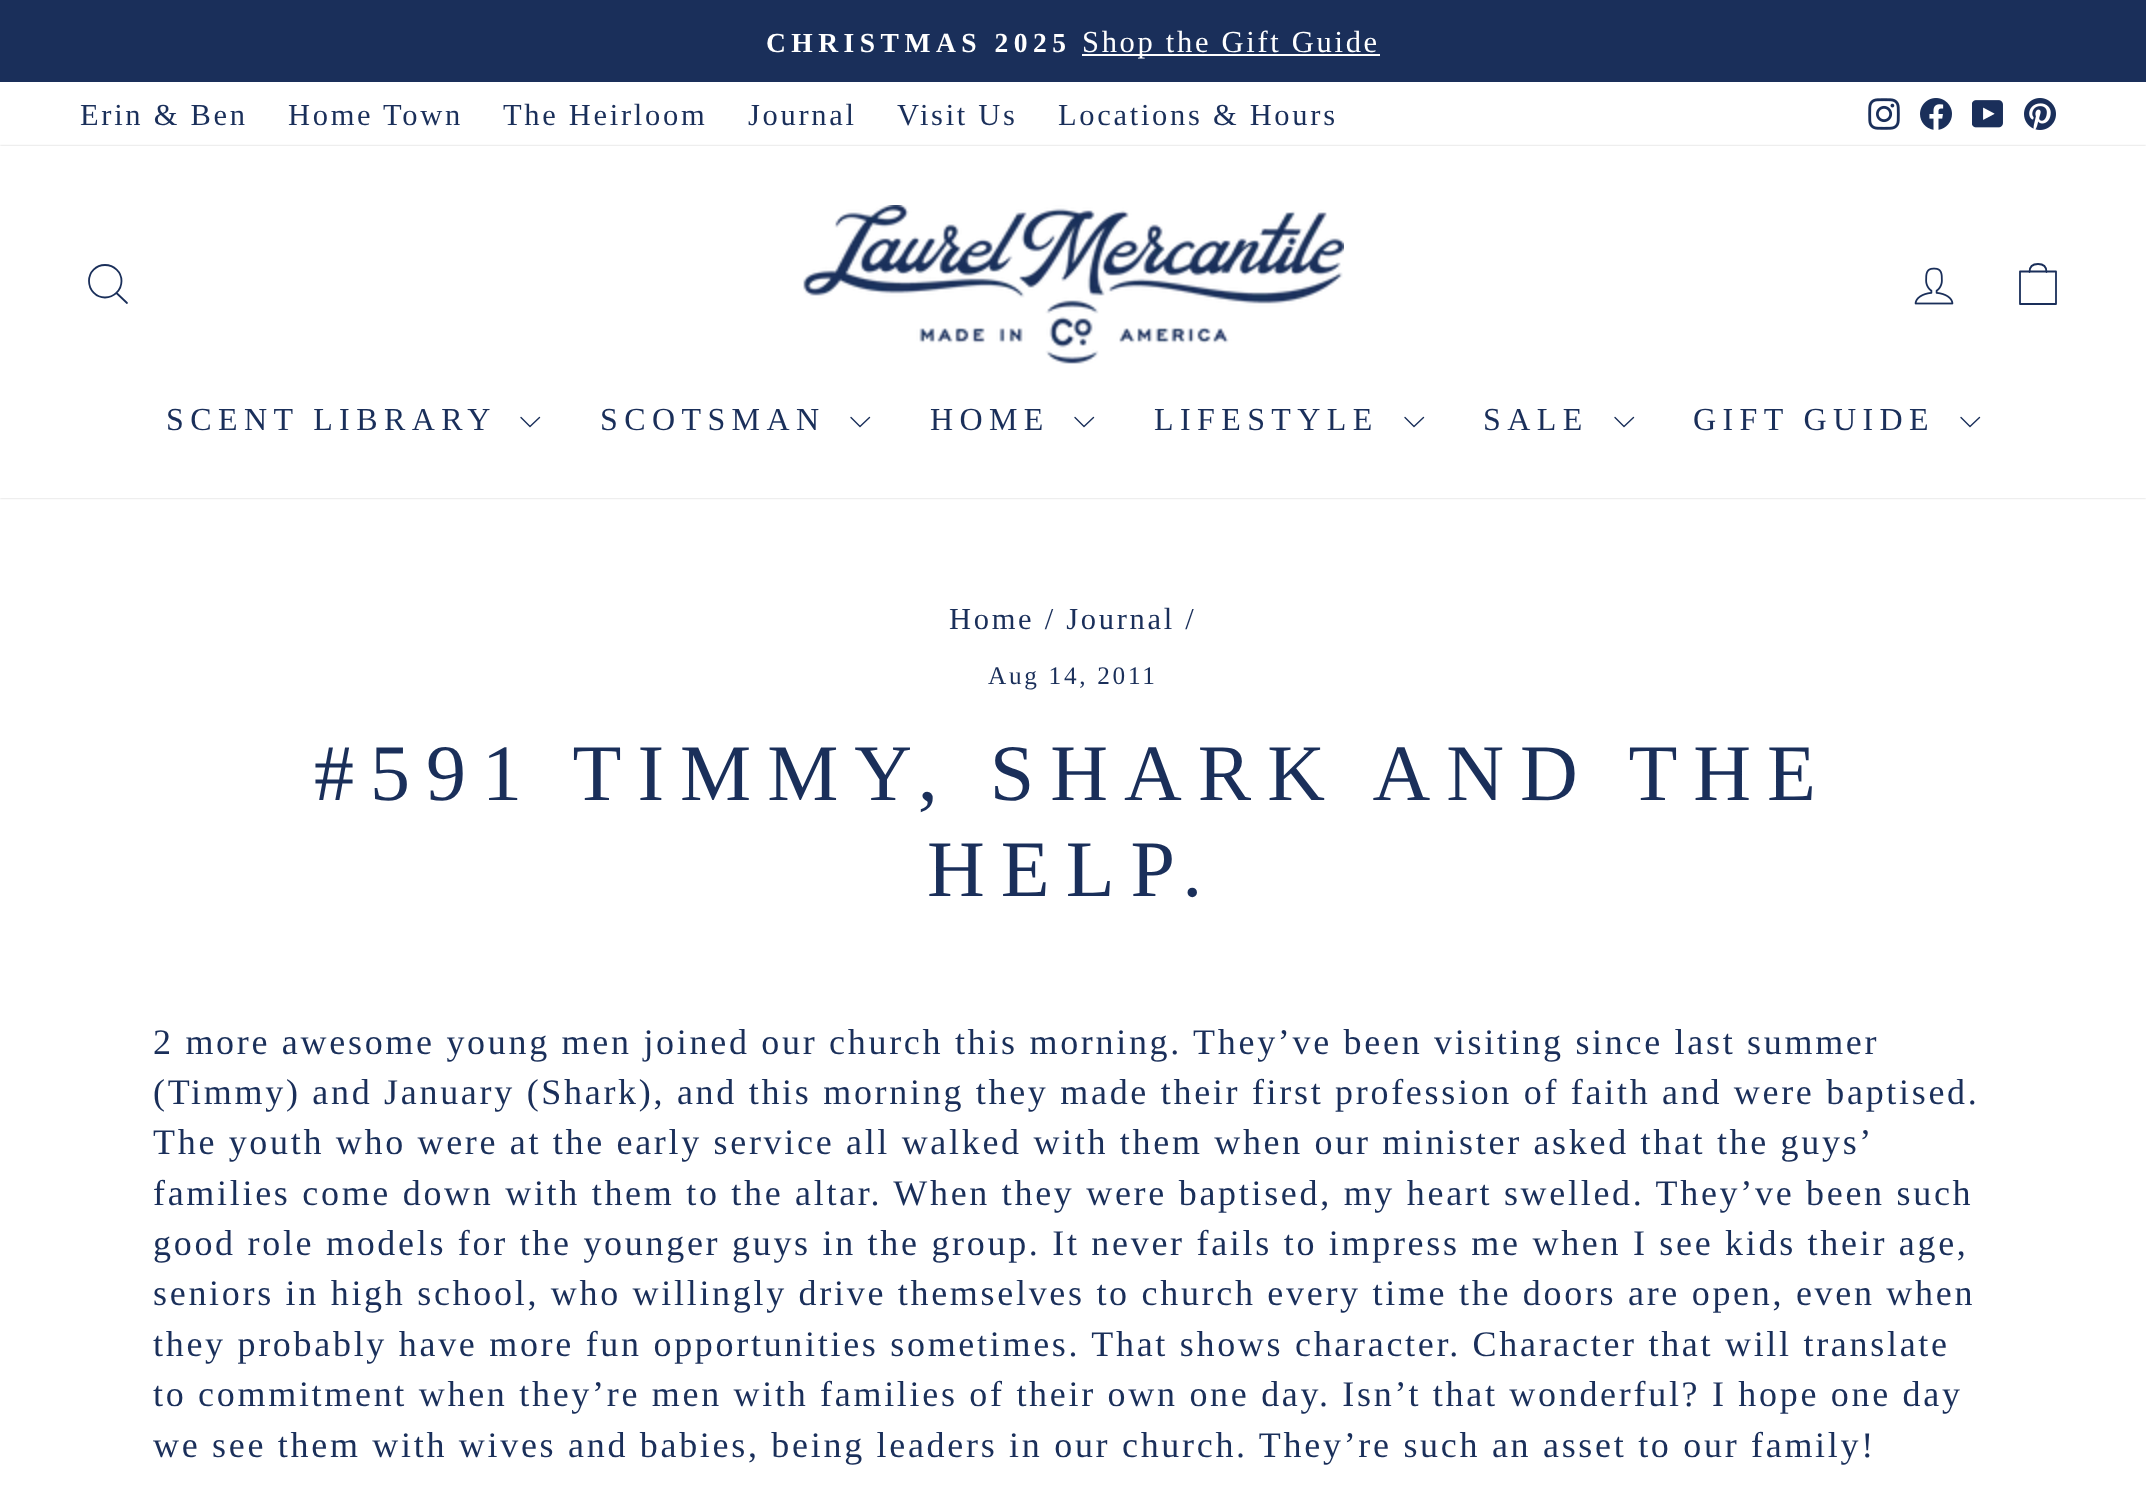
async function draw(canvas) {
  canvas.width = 2146
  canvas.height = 1485
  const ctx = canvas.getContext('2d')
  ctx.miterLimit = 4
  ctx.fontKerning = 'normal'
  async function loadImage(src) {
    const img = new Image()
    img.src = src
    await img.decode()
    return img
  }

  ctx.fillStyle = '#fff'
  ctx.fillRect(0, 0, 2146, 1485)
  ctx.fillStyle = '#1a2f5a'
  ctx.fillRect(0, 0, 2146, 82)
  ctx.letterSpacing = '5.5px'
  ctx.font = 'bold 27.5px Liberation Serif'
  ctx.fillStyle = '#fff'
  ctx.fillText('CHRISTMAS 2025', 766, 52)
  ctx.fillRect(1082, 54, 298, 2)
  ctx.letterSpacing = '2.7px'
  ctx.font = '30.5px Liberation Serif'
  ctx.fillText('Shop the Gift Guide', 1082, 52)
  ctx.fillStyle = '#1a2f5a'
  ctx.fillText('Erin & Ben', 80, 125)
  ctx.fillText('Home Town', 288, 125)
  ctx.fillText('The Heirloom', 503, 125)
  ctx.fillText('Journal', 748, 125)
  ctx.fillText('Visit Us', 897, 125)
  ctx.fillText('Locations & Hours', 1058, 125)
  ctx.drawImage(await loadImage('image0.png'), 1868, 98, 32, 32)
  ctx.drawImage(await loadImage('image1.png'), 1920, 98, 32, 32)
  ctx.drawImage(await loadImage('image2.png'), 1972, 100, 31, 28)
  ctx.drawImage(await loadImage('image3.png'), 2024, 98, 32, 32)
  ctx.save()
  ctx.beginPath()
  ctx.moveTo(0, 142)
  ctx.lineTo(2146, 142)
  ctx.lineTo(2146, 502)
  ctx.lineTo(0, 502)
  ctx.closePath()
  ctx.moveTo(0, 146)
  ctx.lineTo(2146, 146)
  ctx.lineTo(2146, 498)
  ctx.lineTo(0, 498)
  ctx.closePath()
  ctx.clip('evenodd')
  ctx.fillStyle = '#00000033'
  ctx.filter = 'blur(1px)'
  ctx.beginPath()
  ctx.rect(0, 146, 2146, 352)
  ctx.fill()
  ctx.filter = 'none'
  ctx.restore()
  ctx.beginPath()
  ctx.moveTo(121.5, 281)
  ctx.bezierCurveTo(121.5, 290, 114, 297.5, 105, 297.5)
  ctx.bezierCurveTo(96, 297.5, 89, 290, 89, 281)
  ctx.bezierCurveTo(89, 272, 96, 265, 105, 265)
  ctx.bezierCurveTo(114, 265, 121.5, 272, 121.5, 281)
  ctx.closePath()
  ctx.moveTo(127, 303)
  ctx.lineTo(116.5, 293)
  ctx.strokeStyle = '#1a2f5a'
  ctx.lineWidth = 1.8
  ctx.lineCap = 'round'
  ctx.lineJoin = 'round'
  ctx.stroke()
  ctx.drawImage(await loadImage('image4.png'), 803, 205, 541, 159)
  ctx.drawImage(await loadImage('image5.png'), 1914, 267, 40, 38)
  ctx.beginPath()
  ctx.moveTo(2020, 271.5)
  ctx.lineTo(2056, 271.5)
  ctx.lineTo(2056, 304)
  ctx.lineTo(2020, 304)
  ctx.closePath()
  ctx.moveTo(2029.5, 272)
  ctx.bezierCurveTo(2029.5, 265.5, 2033.5, 264, 2038, 264)
  ctx.bezierCurveTo(2042.5, 264, 2046.5, 265.5, 2046.5, 272)
  ctx.stroke()
  ctx.letterSpacing = '6.4px'
  ctx.font = '32px Liberation Serif'
  ctx.fillText('SCENT LIBRARY', 166, 430)
  ctx.beginPath()
  ctx.moveTo(521, 417.5)
  ctx.lineTo(530, 426.5)
  ctx.lineTo(539.5, 417.5)
  ctx.lineWidth = 1.4
  ctx.stroke()
  ctx.fillText('SCOTSMAN', 600, 430)
  ctx.beginPath()
  ctx.moveTo(851, 417.5)
  ctx.lineTo(860, 426.5)
  ctx.lineTo(869.5, 417.5)
  ctx.stroke()
  ctx.fillText('HOME', 930, 430)
  ctx.beginPath()
  ctx.moveTo(1075, 417.5)
  ctx.lineTo(1084, 426.5)
  ctx.lineTo(1093.5, 417.5)
  ctx.stroke()
  ctx.fillText('LIFESTYLE', 1154, 430)
  ctx.beginPath()
  ctx.moveTo(1405, 417.5)
  ctx.lineTo(1414, 426.5)
  ctx.lineTo(1423.5, 417.5)
  ctx.stroke()
  ctx.fillText('SALE', 1483, 430)
  ctx.beginPath()
  ctx.moveTo(1615, 417.5)
  ctx.lineTo(1624, 426.5)
  ctx.lineTo(1633.5, 417.5)
  ctx.stroke()
  ctx.fillText('GIFT GUIDE', 1693, 430)
  ctx.beginPath()
  ctx.moveTo(1961, 417.5)
  ctx.lineTo(1970, 426.5)
  ctx.lineTo(1979.5, 417.5)
  ctx.stroke()
  ctx.letterSpacing = '2.7px'
  ctx.font = '30.5px Liberation Serif'
  ctx.fillText('Home / Journal /', 949, 629)
  ctx.font = '25.25px Liberation Serif'
  ctx.fillText('Aug 14, 2011', 988, 684)
  ctx.letterSpacing = '16px'
  ctx.font = '80px Liberation Serif'
  ctx.fillText('#591 TIMMY, SHARK AND THE', 314, 800)
  ctx.fillText('HELP.', 927, 896)
  ctx.letterSpacing = '2.7px'
  ctx.font = '36px Liberation Serif'
  ctx.fillText('2 more awesome young men joined our church this morning. They’ve been visiting since last summer', 153, 1054)
  ctx.fillText('(Timmy) and January (Shark), and this morning they made their first profession of faith and were baptised.', 153, 1104)
  ctx.wordSpacing = '-0.1px'
  ctx.fillText('The youth who were at the early service all walked with them when our minister asked that the guys’', 153, 1154)
  ctx.wordSpacing = '0px'
  ctx.fillText('families come down with them to the altar. When they were baptised, my heart swelled. They’ve been such', 153, 1205)
  ctx.fillText('good role models for the younger guys in the group. It never fails to impress me when I see kids their age,', 153, 1255)
  ctx.fillText('seniors in high school, who willingly drive themselves to church every time the doors are open, even when', 153, 1305)
  ctx.fillText('they probably have more fun opportunities sometimes. That shows character. Character that will translate', 153, 1356)
  ctx.fillText('to commitment when they’re men with families of their own one day. Isn’t that wonderful? I hope one day', 153, 1406)
  ctx.fillText('we see them with wives and babies, being leaders in our church. They’re such an asset to our family!', 153, 1457)
}

draw(document.querySelector('canvas'))
